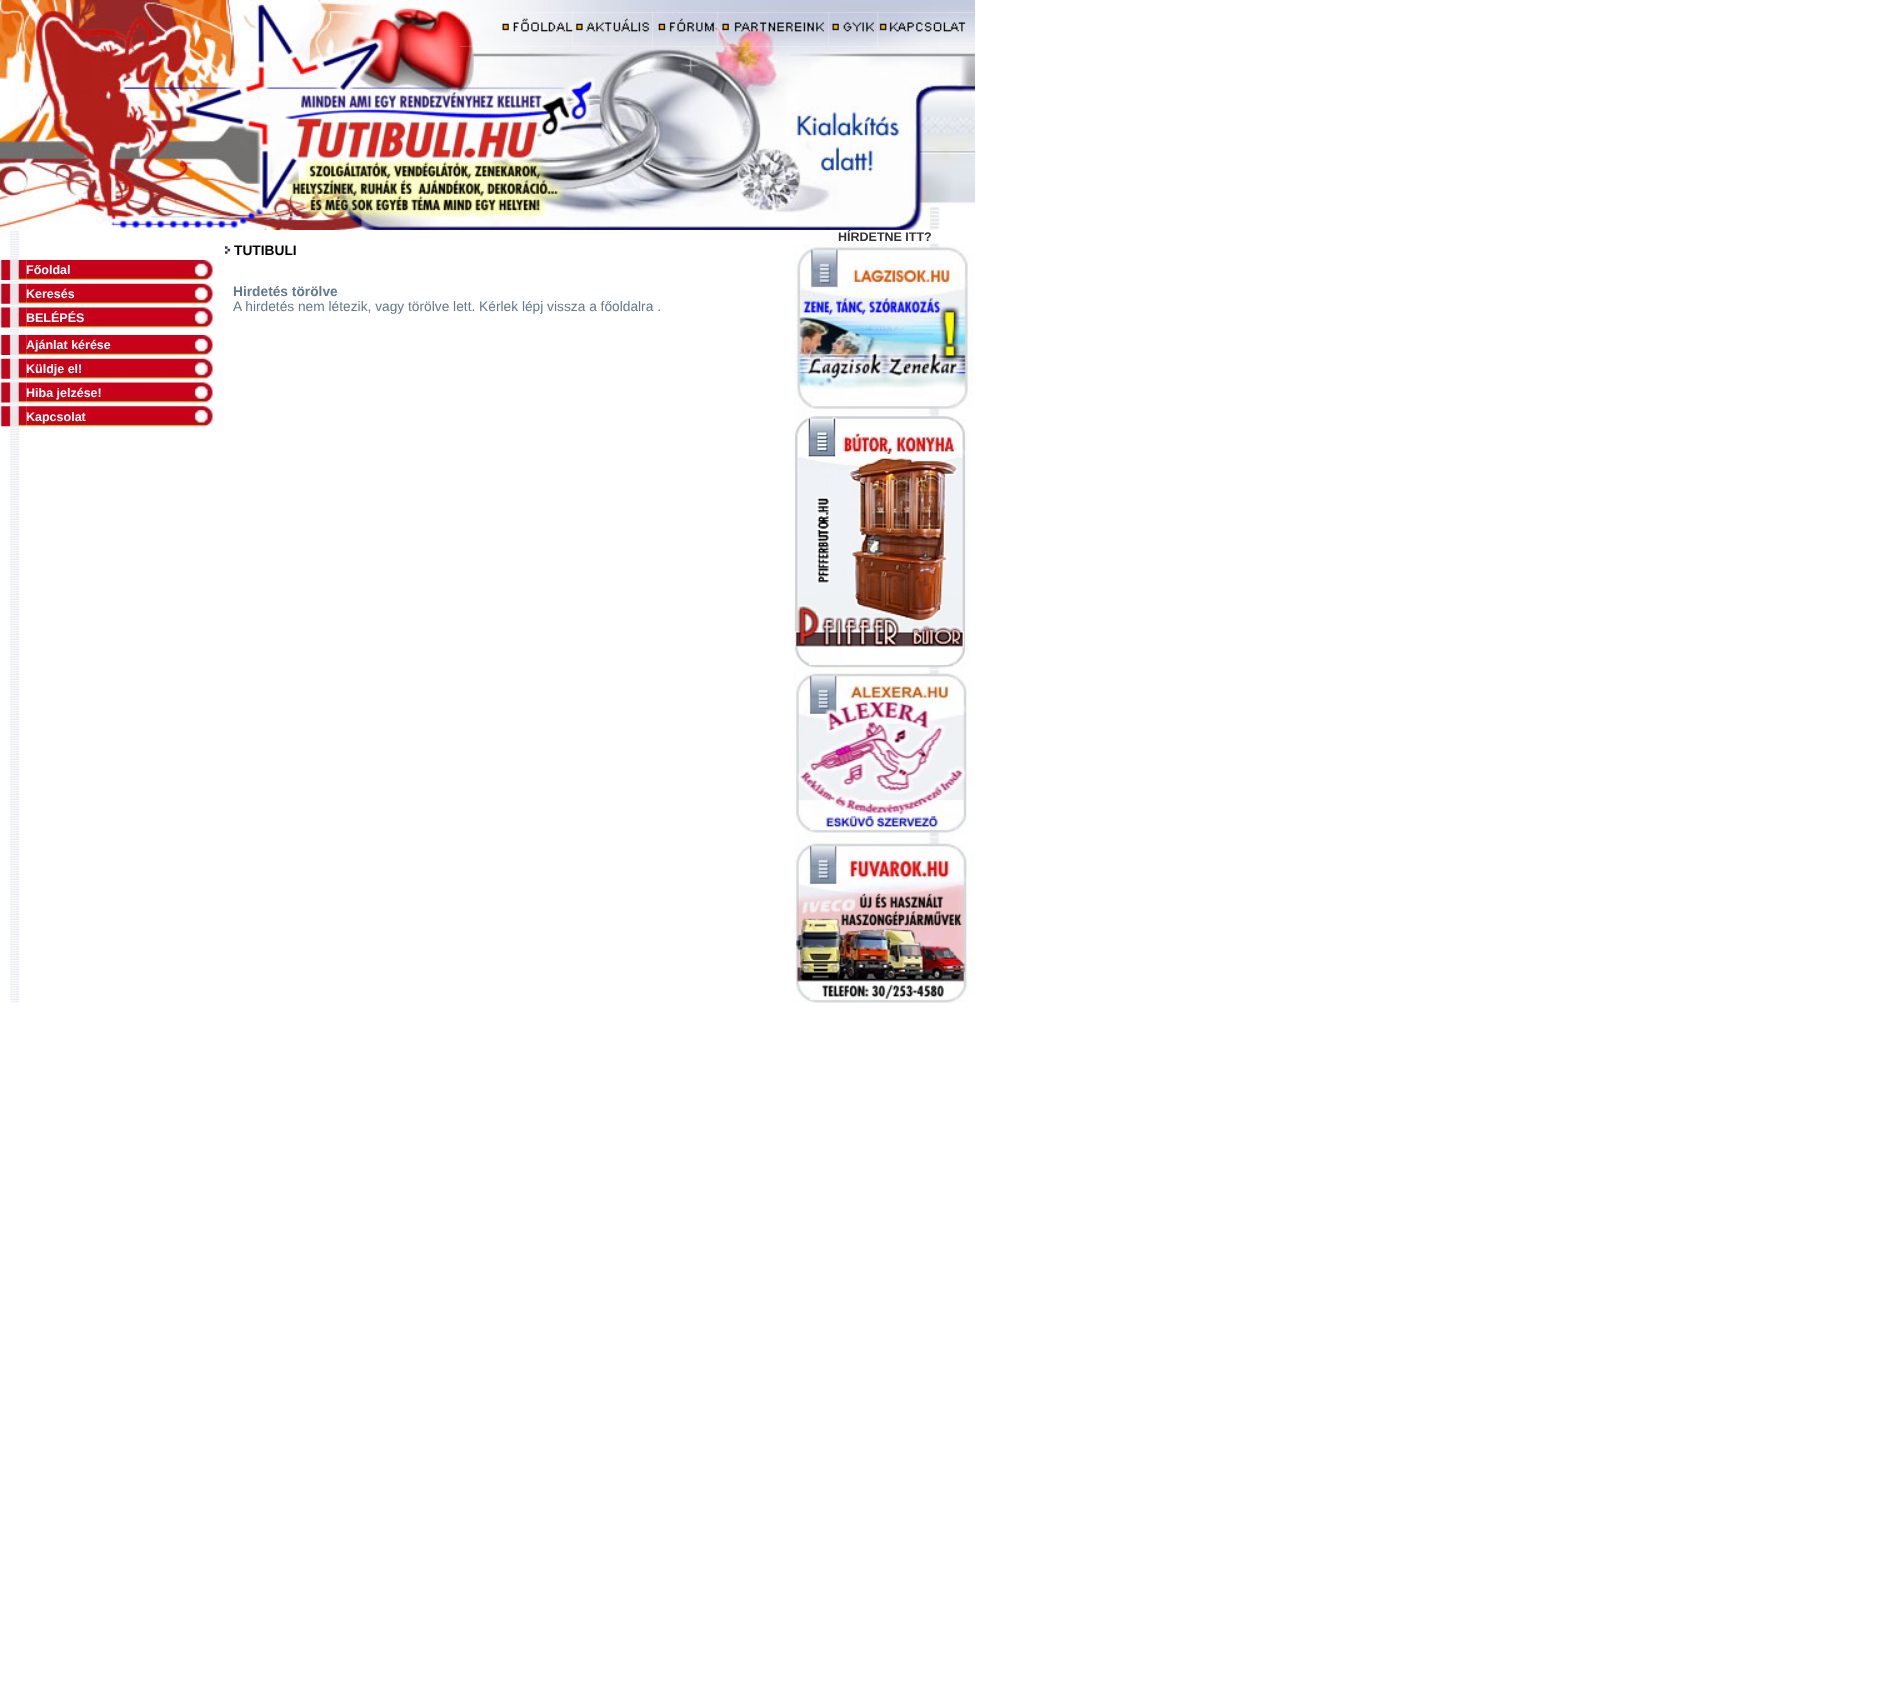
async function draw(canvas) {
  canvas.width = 1889
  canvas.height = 1686
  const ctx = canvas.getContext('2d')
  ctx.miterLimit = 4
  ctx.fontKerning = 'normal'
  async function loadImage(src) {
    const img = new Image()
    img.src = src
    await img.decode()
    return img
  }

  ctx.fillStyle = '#fff'
  ctx.fillRect(0, 0, 1889, 1686)
  ctx.drawImage(await loadImage('image0.png'), 0, 0, 460, 230)
  ctx.drawImage(await loadImage('image1.png'), 460, 0, 515, 13)
  ctx.drawImage(await loadImage('image2.png'), 460, 12, 113, 35)
  ctx.drawImage(await loadImage('image3.png'), 572, 12, 81, 35)
  ctx.drawImage(await loadImage('image4.png'), 652, 12, 66, 35)
  ctx.drawImage(await loadImage('image5.png'), 717, 12, 112, 35)
  ctx.drawImage(await loadImage('image6.png'), 828, 12, 50, 35)
  ctx.drawImage(await loadImage('image7.png'), 877, 12, 98, 35)
  ctx.drawImage(await loadImage('image8.png'), 460, 46, 515, 184)
  ctx.font = 'bold 12.5px Liberation Sans'
  ctx.fillStyle = '#323232'
  ctx.fillText('HÍRDETNE ITT?', 838, 241)
  ctx.drawImage(await loadImage('image9.png'), 793, 243, 181, 169)
  ctx.drawImage(await loadImage('image10.png'), 794, 411, 177, 257)
  ctx.drawImage(await loadImage('image11.png'), 794, 667, 180, 168)
  ctx.drawImage(await loadImage('image12.png'), 794, 835, 180, 168)
  ctx.drawImage(await loadImage('image13.png'), 10, 230, 10, 773)
  ctx.drawImage(await loadImage('image15.png'), 26, 260, 187, 20)
  ctx.drawImage(await loadImage('image14.png'), 0, 260, 27, 20)
  ctx.fillStyle = '#fff'
  ctx.fillText('Főoldal', 26, 274)
  ctx.drawImage(await loadImage('image17.png'), 26, 283, 187, 21)
  ctx.drawImage(await loadImage('image16.png'), 0, 283, 27, 21)
  ctx.fillText('Keresés', 26, 298)
  ctx.drawImage(await loadImage('image19.png'), 26, 307, 187, 21)
  ctx.drawImage(await loadImage('image18.png'), 0, 307, 27, 21)
  ctx.fillText('BELÉPÉS', 26, 322)
  ctx.drawImage(await loadImage('image15.png'), 26, 335, 187, 20)
  ctx.drawImage(await loadImage('image14.png'), 0, 335, 27, 20)
  ctx.fillText('Ajánlat kérése', 26, 349)
  ctx.drawImage(await loadImage('image21.png'), 26, 358, 187, 21)
  ctx.drawImage(await loadImage('image20.png'), 0, 358, 27, 21)
  ctx.fillText('Küldje el!', 26, 373)
  ctx.drawImage(await loadImage('image19.png'), 26, 382, 187, 21)
  ctx.drawImage(await loadImage('image18.png'), 0, 382, 27, 21)
  ctx.fillText('Hiba jelzése!', 26, 397)
  ctx.drawImage(await loadImage('image23.png'), 26, 406, 187, 21)
  ctx.drawImage(await loadImage('image22.png'), 0, 406, 27, 21)
  ctx.fillText('Kapcsolat', 26, 421)
  ctx.drawImage(await loadImage('image24.png'), 225, 246, 6, 8)
  ctx.font = 'bold 13.75px Liberation Sans'
  ctx.fillStyle = '#000'
  ctx.fillText('TUTIBULI', 234, 255)
  ctx.fillStyle = '#637a8e'
  ctx.fillText('Hirdetés törölve', 233, 296)
  ctx.font = '13.75px Liberation Sans'
  ctx.fillText('A hirdetés nem létezik, vagy törölve lett. Kérlek lépj vissza a főoldalra .', 233, 311)
}

draw(document.querySelector('canvas'))
